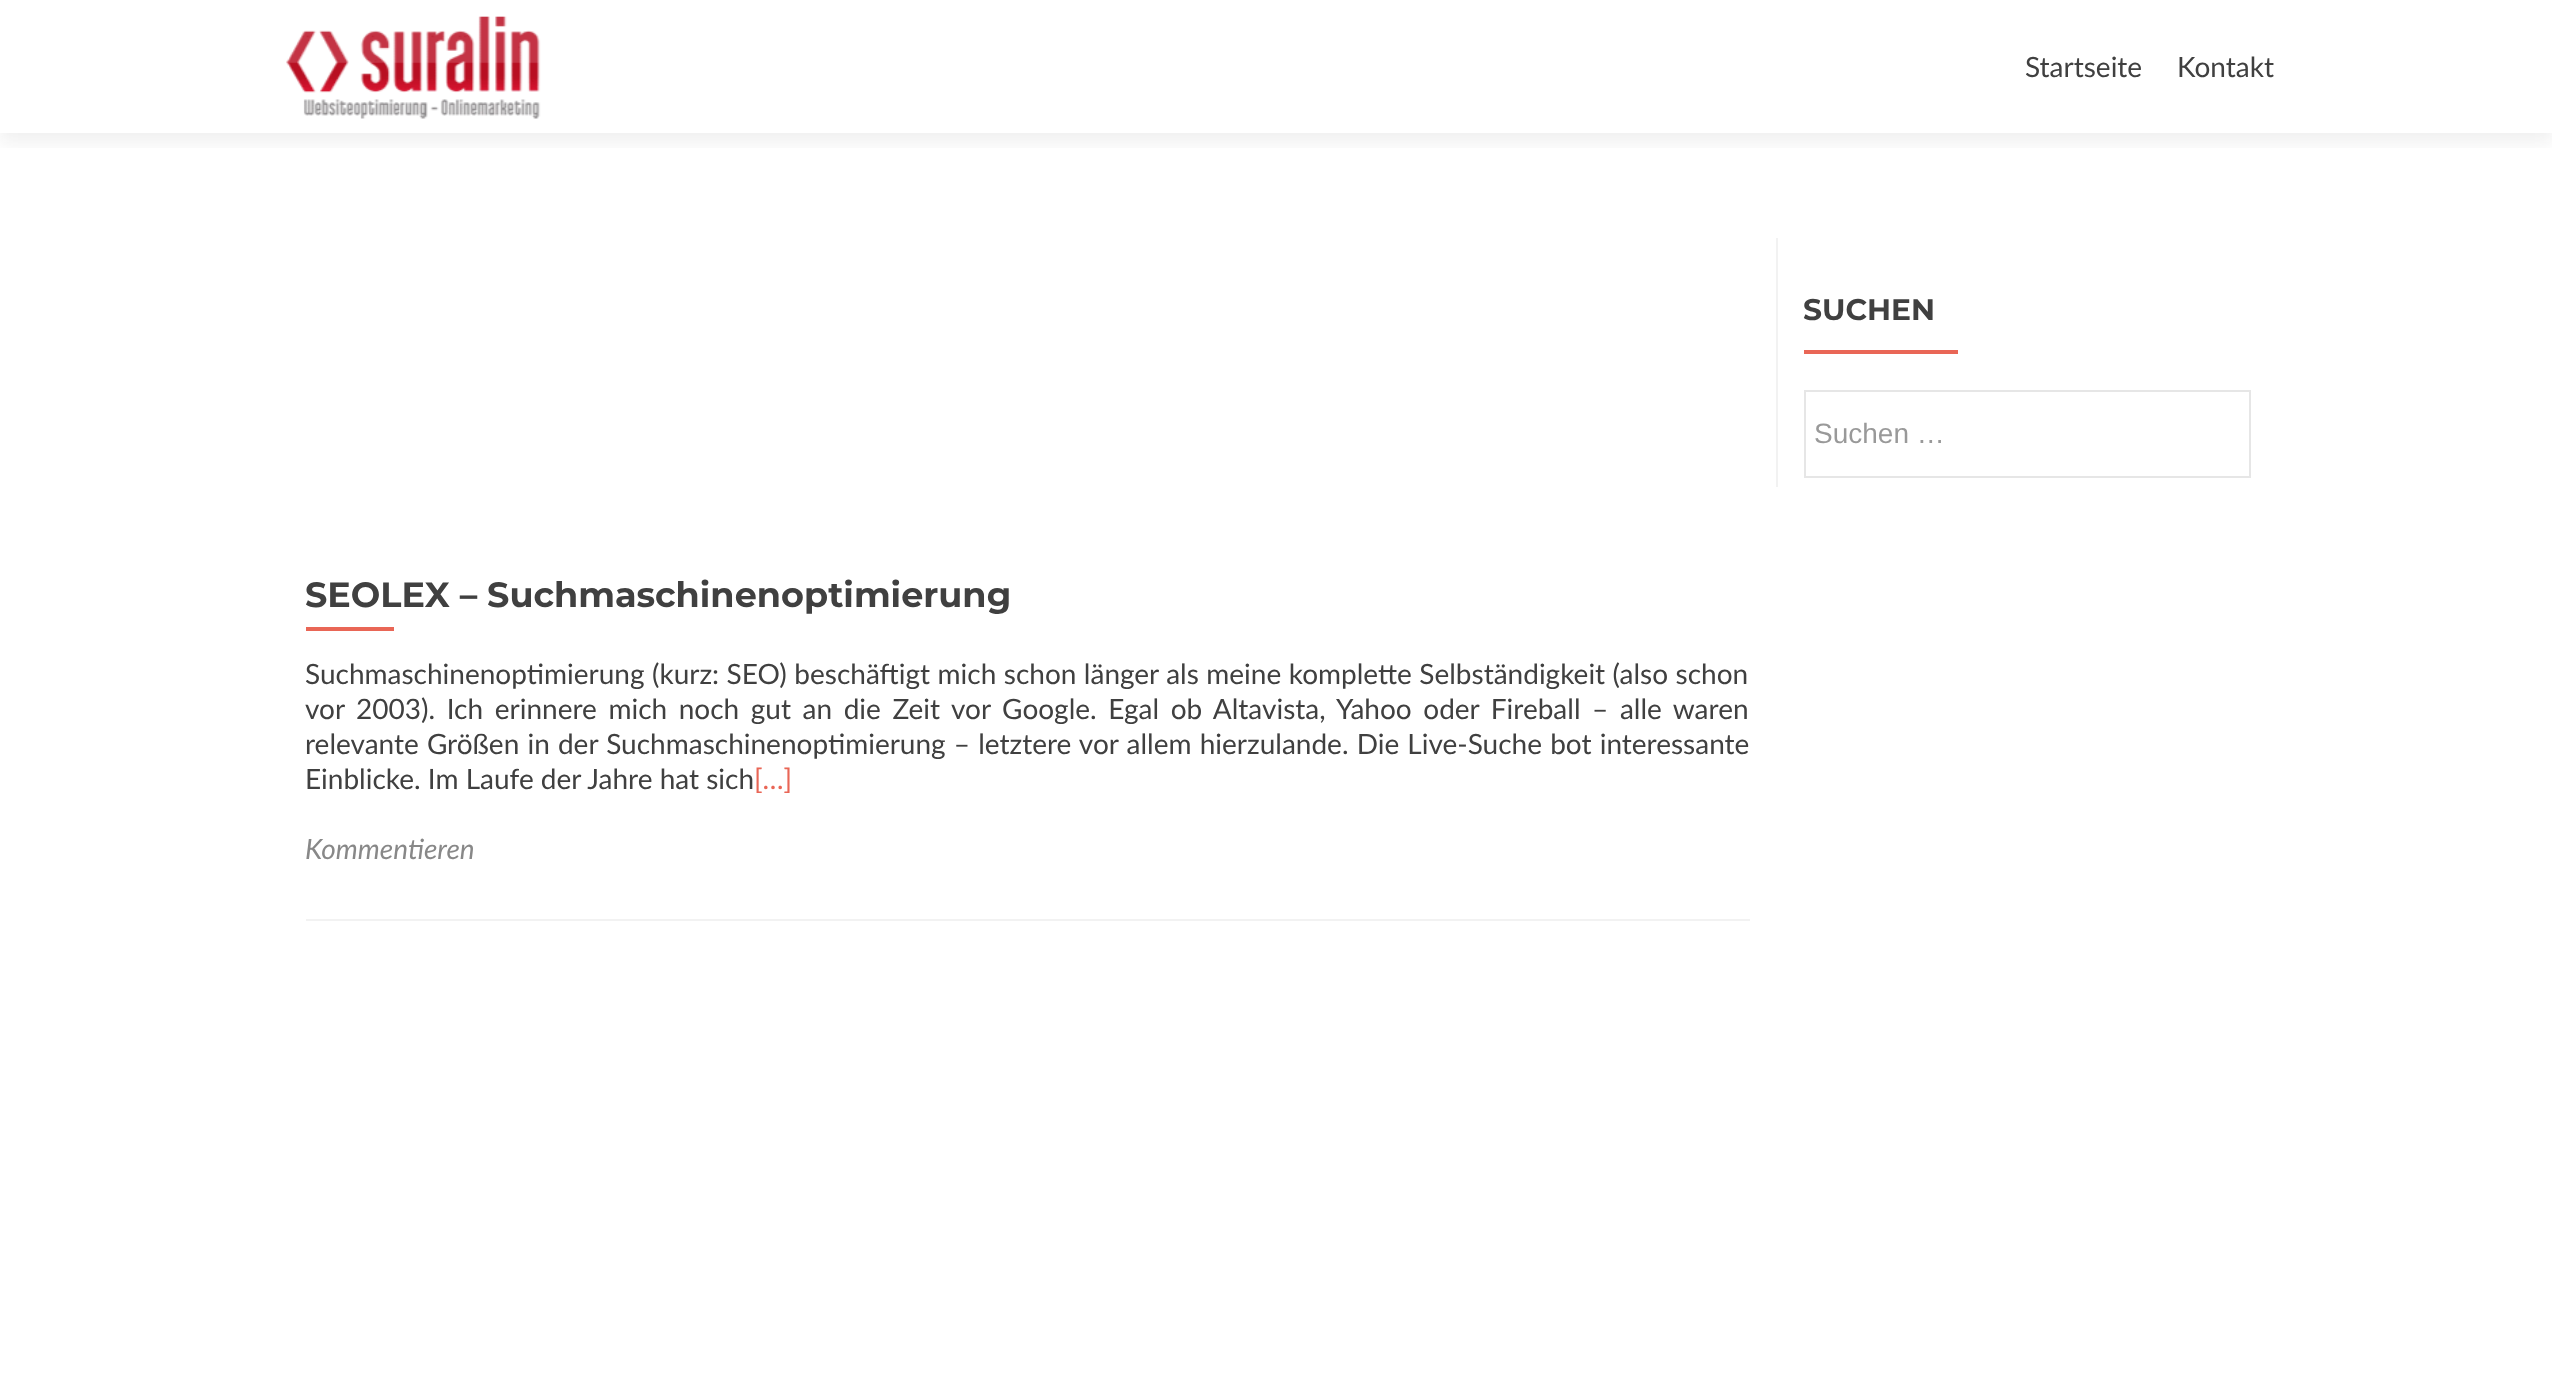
async function draw(canvas) {
  canvas.width = 2552
  canvas.height = 1388
  const ctx = canvas.getContext('2d')
  ctx.miterLimit = 4
  ctx.fontKerning = 'normal'
  async function loadImage(src) {
    const img = new Image()
    img.src = src
    await img.decode()
    return img
  }

  ctx.fillStyle = '#fff'
  ctx.fillRect(0, 0, 2552, 1388)
  ctx.save()
  ctx.beginPath()
  ctx.rect(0, 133, 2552, 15)
  ctx.clip()
  ctx.fillStyle = '#32323214'
  ctx.filter = 'blur(9.5px)'
  ctx.beginPath()
  ctx.rect(0, 9, 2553, 133)
  ctx.fill()
  ctx.filter = 'none'
  ctx.restore()
  ctx.drawImage(await loadImage('image0.png'), 286, 16, 255, 103)
  ctx.font = '28px Lato'
  ctx.fillStyle = '#404040'
  ctx.fillText('Startseite', 2025, 77)
  ctx.fillText('Kontakt', 2177, 77)
  ctx.fillStyle = '#f2f2f2'
  ctx.fillRect(1776, 238, 2, 249)
  ctx.font = 'bold 29.75px Montserrat'
  ctx.fillStyle = '#404040'
  ctx.fillText('SUCHEN', 1803, 320)
  ctx.fillStyle = '#e96656'
  ctx.fillRect(1804, 350, 154, 4)
  ctx.strokeStyle = '#e6e6e6'
  ctx.lineWidth = 2
  ctx.strokeRect(1805, 391, 445, 86)
  ctx.font = '28px Liberation Sans'
  ctx.fillStyle = '#999'
  ctx.fillText('Suchen …', 1814, 443)
  ctx.fillStyle = '#f2f2f2'
  ctx.fillRect(306, 919, 1444, 2)
  ctx.font = 'bold 35px Montserrat'
  ctx.fillStyle = '#404040'
  ctx.fillText('SEOLEX – Suchmaschinenoptimierung', 305, 607)
  ctx.fillStyle = '#e96656'
  ctx.fillRect(306, 627, 88, 4)
  ctx.wordSpacing = '0.3px'
  ctx.font = '28px Lato'
  ctx.fillStyle = '#404040'
  ctx.fillText('Suchmaschinenoptimierung (kurz: SEO) beschäftigt mich schon länger als meine komplette Selbständigkeit (also schon', 305, 684)
  ctx.wordSpacing = '4.4px'
  ctx.fillText('vor 2003). Ich erinnere mich noch gut an die Zeit vor Google. Egal ob Altavista, Yahoo oder Fireball – alle waren', 305, 719)
  ctx.wordSpacing = '1px'
  ctx.fillText('relevante Größen in der Suchmaschinenoptimierung – letztere vor allem hierzulande. Die Live-Suche bot interessante', 305, 754)
  ctx.wordSpacing = '0px'
  ctx.fillText('Einblicke. Im Laufe der Jahre hat sich', 305, 789)
  ctx.fillStyle = '#e96656'
  ctx.fillText('[…]', 754, 789)
  ctx.font = 'italic 28px Lato'
  ctx.fillStyle = '#888'
  ctx.fillText('Kommentieren', 305, 859)
}

draw(document.querySelector('canvas'))
